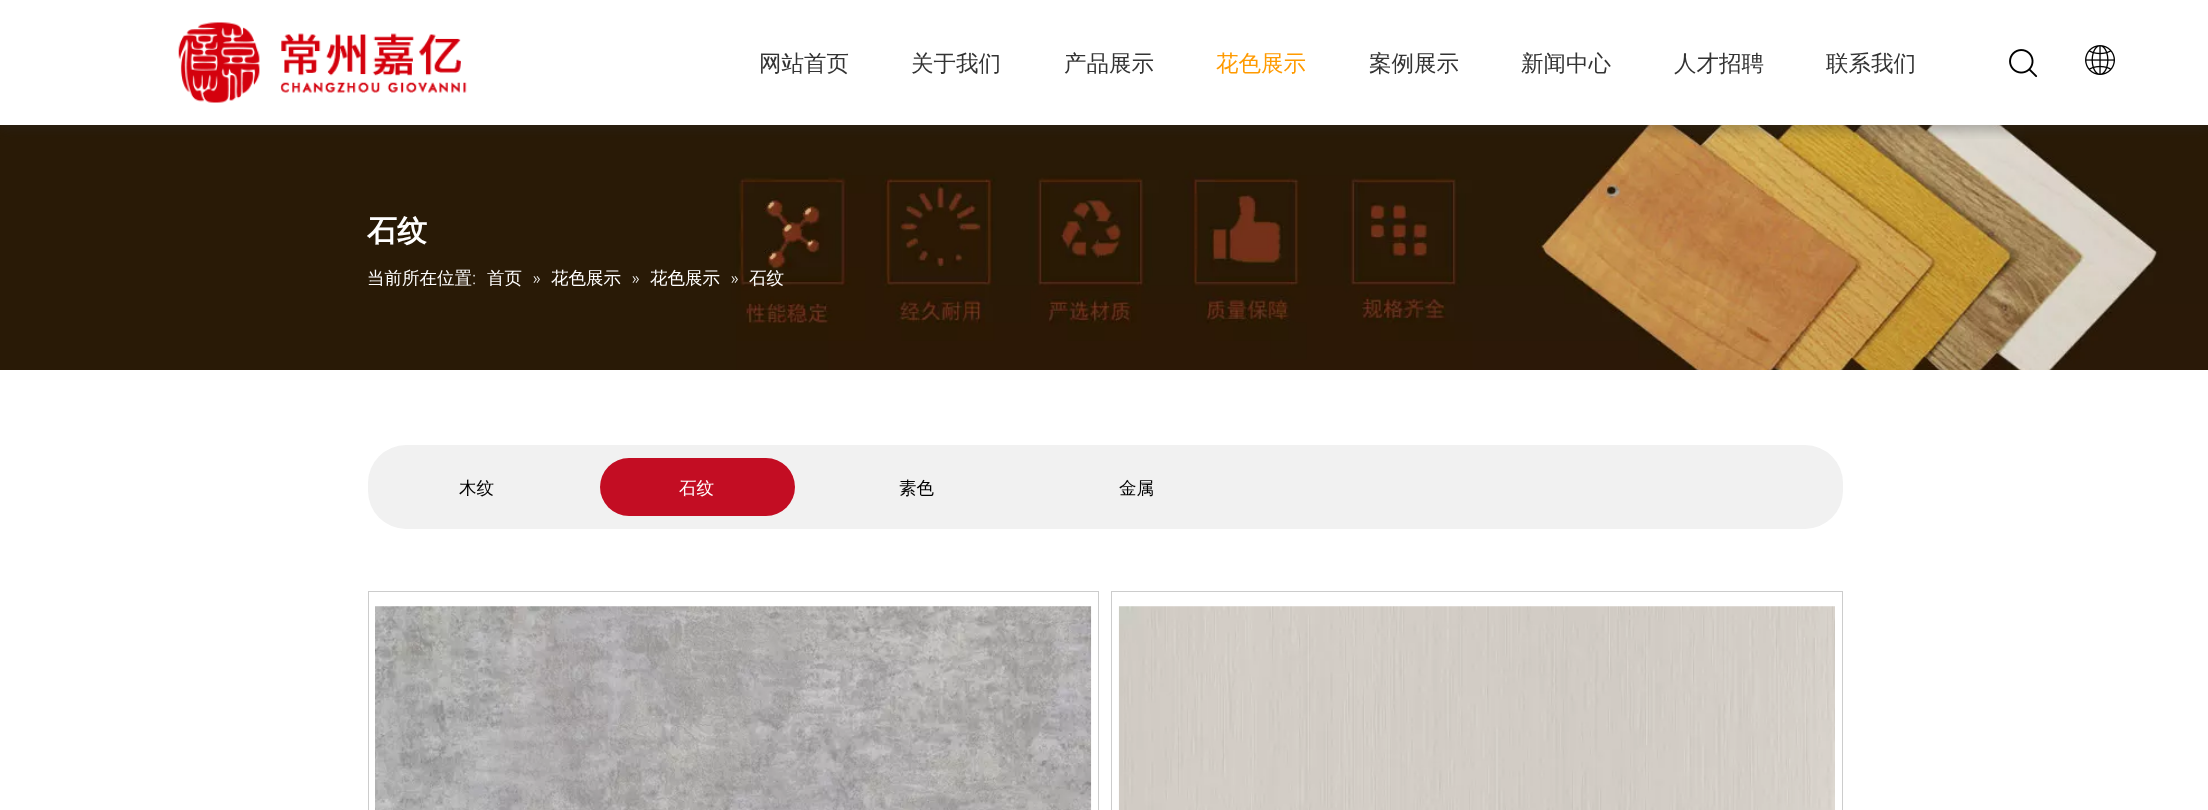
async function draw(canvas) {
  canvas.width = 2208
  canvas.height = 810
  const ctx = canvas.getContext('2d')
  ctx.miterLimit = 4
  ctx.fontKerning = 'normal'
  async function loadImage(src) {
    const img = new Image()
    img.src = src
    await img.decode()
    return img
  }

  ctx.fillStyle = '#fff'
  ctx.fillRect(0, 0, 2208, 810)
  ctx.drawImage(await loadImage('image3.png'), 0, 125, 2208, 245)
  ctx.save()
  ctx.beginPath()
  ctx.rect(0, 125, 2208, 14)
  ctx.clip()
  ctx.fillStyle = '#2c2c2c4d'
  ctx.filter = 'blur(6px)'
  ctx.beginPath()
  ctx.rect(0, 5, 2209, 125)
  ctx.fill()
  ctx.filter = 'none'
  ctx.restore()
  ctx.drawImage(await loadImage('image0.png'), 178, 22, 289, 81)
  ctx.font = '500 22.5px WenQuanYi Zen Hei'
  ctx.fillStyle = '#333'
  ctx.fillText('网站首页', 759, 71)
  ctx.fillText('关于我们', 911, 71)
  ctx.fillText('产品展示', 1064, 71)
  ctx.fillStyle = '#ff9a00'
  ctx.fillText('花色展示', 1216, 71)
  ctx.fillStyle = '#333'
  ctx.fillText('案例展示', 1369, 71)
  ctx.fillText('新闻中心', 1521, 71)
  ctx.fillText('人才招聘', 1674, 71)
  ctx.fillText('联系我们', 1826, 71)
  ctx.drawImage(await loadImage('image1.png'), 2009, 49, 29, 29)
  ctx.drawImage(await loadImage('image2.png'), 2085, 45, 30, 30)
  ctx.font = 'bold 30px WenQuanYi Zen Hei'
  ctx.fillStyle = '#fff'
  ctx.fillText('石纹', 367, 241)
  ctx.font = '500 17.5px WenQuanYi Zen Hei'
  ctx.fillText('当前所在位置', 367, 284)
  ctx.font = '300 17.5px Open Sans'
  ctx.fillText(':', 472, 284)
  ctx.font = '500 17.5px WenQuanYi Zen Hei'
  ctx.fillText('首页', 487, 284)
  ctx.font = '300 17.5px Open Sans'
  ctx.fillText('»', 533, 284)
  ctx.font = '500 17.5px WenQuanYi Zen Hei'
  ctx.fillText('花色展示', 551, 284)
  ctx.font = '300 17.5px Open Sans'
  ctx.fillText('»', 632, 284)
  ctx.font = '500 17.5px WenQuanYi Zen Hei'
  ctx.fillText('花色展示', 650, 284)
  ctx.font = '300 17.5px Open Sans'
  ctx.fillText('»', 731, 284)
  ctx.font = '500 17.5px WenQuanYi Zen Hei'
  ctx.fillText('石纹', 749, 284)
  ctx.fillStyle = '#f1f1f1'
  ctx.beginPath()
  ctx.roundRect(368, 445, 1475, 84, 38)
  ctx.fill()
  ctx.fillStyle = '#000'
  ctx.fillText('木纹', 459, 494)
  ctx.fillStyle = '#c30d23'
  ctx.beginPath()
  ctx.roundRect(600, 458, 195, 58, 29)
  ctx.fill()
  ctx.fillStyle = '#fff'
  ctx.fillText('石纹', 679, 494)
  ctx.fillStyle = '#000'
  ctx.fillText('素色', 899, 494)
  ctx.fillText('金属', 1119, 494)
  ctx.strokeStyle = '#ccc'
  ctx.strokeRect(368.5, 591.5, 730, 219)
  ctx.drawImage(await loadImage('image4.png'), 375, 606, 717, 204)
  ctx.strokeRect(1111.5, 591.5, 731, 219)
  ctx.drawImage(await loadImage('image5.png'), 1118, 606, 717, 204)
}

draw(document.querySelector('canvas'))
